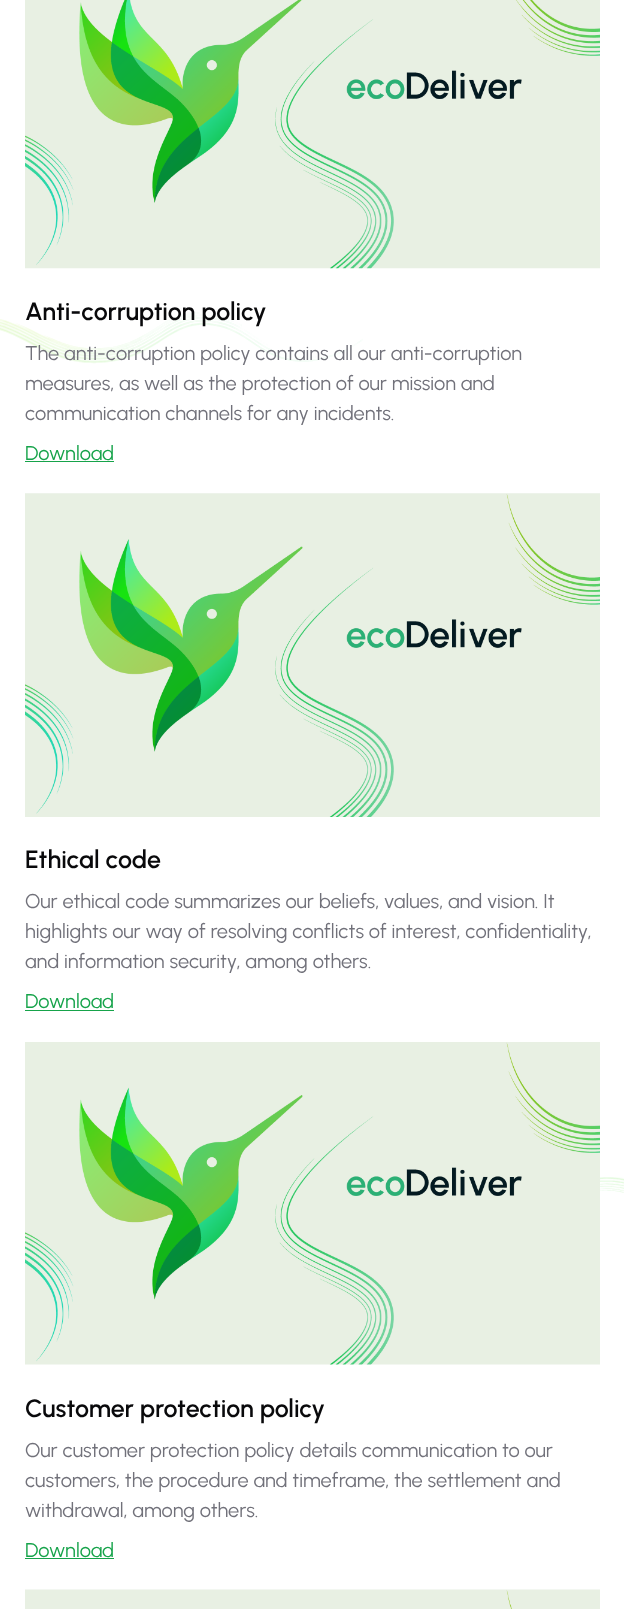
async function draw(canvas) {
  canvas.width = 624
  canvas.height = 1609
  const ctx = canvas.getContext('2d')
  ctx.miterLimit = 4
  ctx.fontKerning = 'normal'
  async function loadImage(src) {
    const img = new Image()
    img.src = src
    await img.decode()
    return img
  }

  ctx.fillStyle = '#fff'
  ctx.fillRect(0, 0, 624, 1609)
  ctx.drawImage(await loadImage('image0.png'), 25, 0, 575, 269)
  ctx.drawImage(await loadImage('image4.png'), 0, 312, 363, 52)
  ctx.font = '600 25px Urbanist'
  ctx.fillStyle = '#09090b'
  ctx.fillText('Anti-corruption policy', 25, 320)
  ctx.font = '20px Urbanist'
  ctx.fillStyle = '#71717a'
  ctx.fillText('The anti-corruption policy contains all our anti-corruption', 25, 360)
  ctx.fillText('measures, as well as the protection of our mission and', 25, 390)
  ctx.fillText('communication channels for any incidents.', 25, 420)
  ctx.fillStyle = '#16a34a'
  ctx.fillText('Download', 25, 460)
  ctx.fillRect(25, 461, 89, 1)
  ctx.drawImage(await loadImage('image1.png'), 25, 493, 575, 324)
  ctx.font = '600 25px Urbanist'
  ctx.fillStyle = '#09090b'
  ctx.fillText('Ethical code', 25, 868)
  ctx.font = '20px Urbanist'
  ctx.fillStyle = '#71717a'
  ctx.fillText('Our ethical code summarizes our beliefs, values, and vision. It', 25, 908)
  ctx.fillText('highlights our way of resolving conflicts of interest, confidentiality,', 25, 938)
  ctx.fillText('and information security, among others.', 25, 968)
  ctx.fillStyle = '#16a34a'
  ctx.fillText('Download', 25, 1008)
  ctx.fillRect(25, 1010, 89, 1)
  ctx.drawImage(await loadImage('image2.png'), 25, 1042, 575, 323)
  ctx.font = '600 25px Urbanist'
  ctx.fillStyle = '#09090b'
  ctx.fillText('Customer protection policy', 25, 1417)
  ctx.font = '20px Urbanist'
  ctx.fillStyle = '#71717a'
  ctx.fillText('Our customer protection policy details communication to our', 25, 1457)
  ctx.fillText('customers, the procedure and timeframe, the settlement and', 25, 1487)
  ctx.fillText('withdrawal, among others.', 25, 1517)
  ctx.fillStyle = '#16a34a'
  ctx.fillText('Download', 25, 1557)
  ctx.fillRect(25, 1558, 89, 1)
  ctx.drawImage(await loadImage('image3.png'), 25, 1589, 575, 20)
  ctx.drawImage(await loadImage('image5.png'), 600, 1177, 24, 16)
}

draw(document.querySelector('canvas'))
